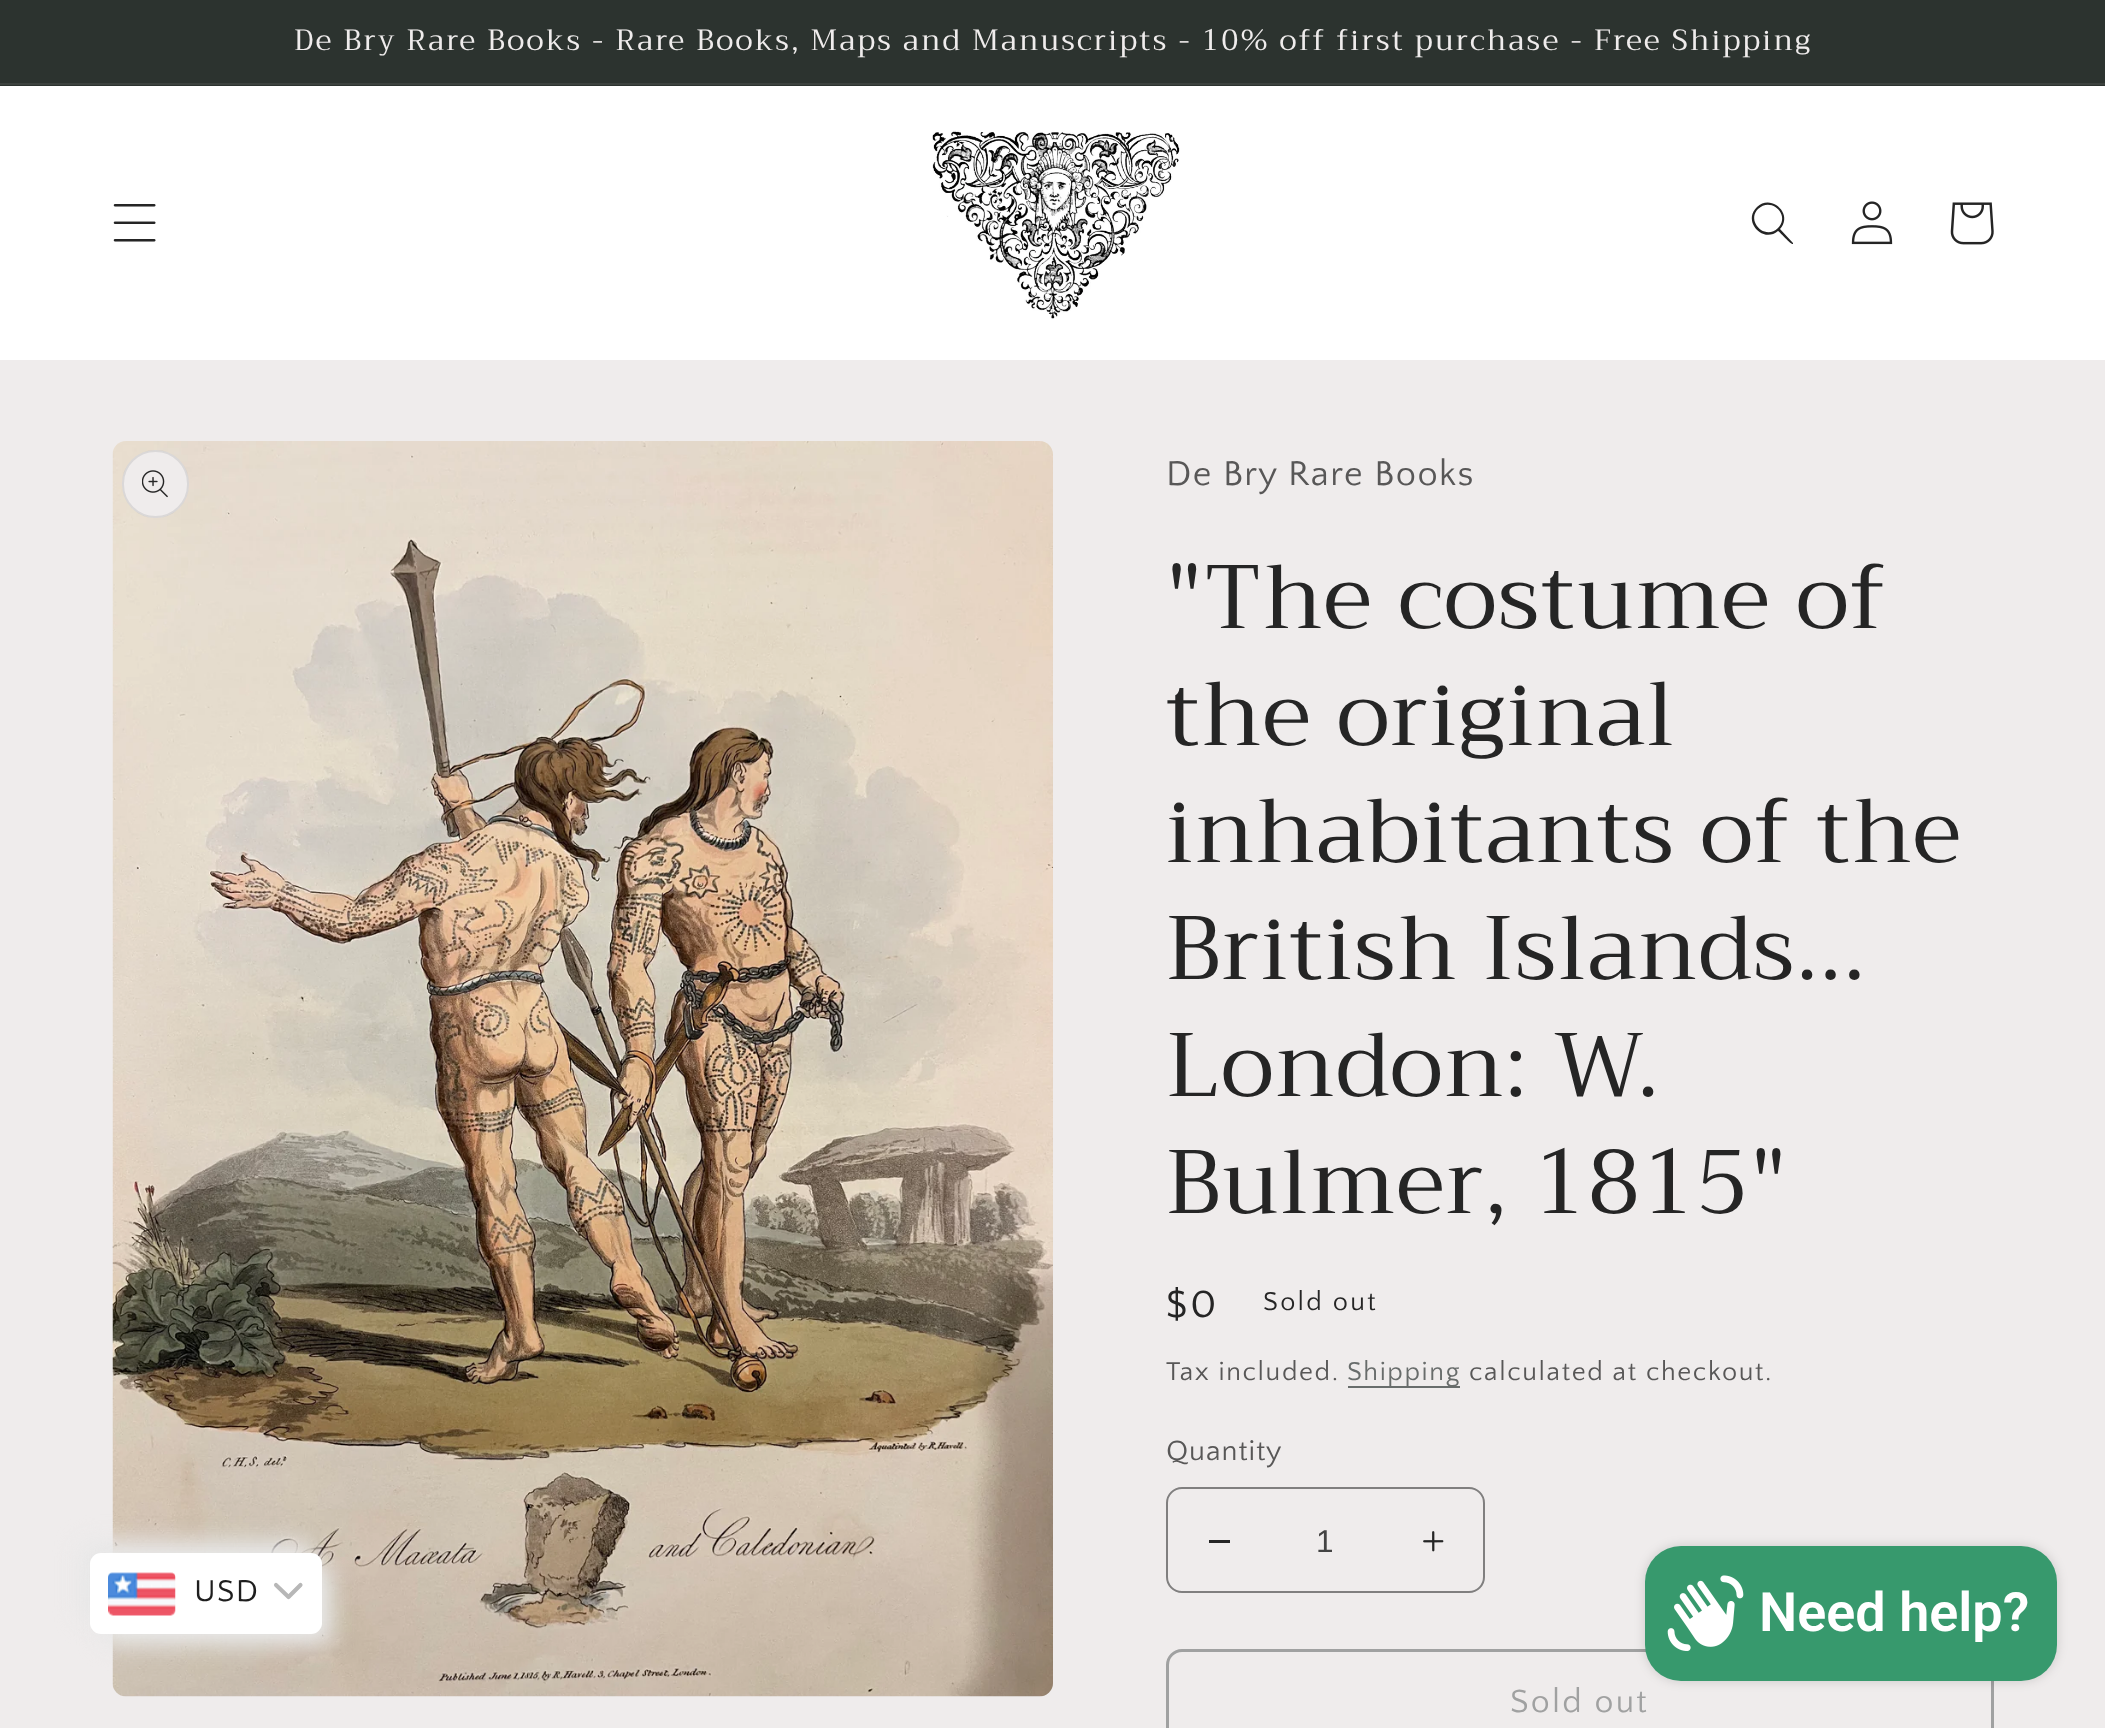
async function draw(canvas) {
  canvas.width = 2105
  canvas.height = 1728
  const ctx = canvas.getContext('2d')
  ctx.miterLimit = 4
  ctx.fontKerning = 'normal'
  async function loadImage(src) {
    const img = new Image()
    img.src = src
    await img.decode()
    return img
  }

  ctx.fillStyle = '#efecec'
  ctx.fillRect(0, 0, 2105, 1728)
  ctx.fillStyle = '#2c332f'
  ctx.fillRect(0, 0, 2105, 86)
  ctx.fillStyle = '#3c423e'
  ctx.fillRect(0, 83, 2105, 2)
  ctx.letterSpacing = '2.25px'
  ctx.font = '29.25px Trirong'
  ctx.fillStyle = '#efecec'
  ctx.fillText('De Bry Rare Books - Rare Books, Maps and Manuscripts - 10% off first purchase - Free Shipping', 294, 50)
  ctx.fillStyle = '#fff'
  ctx.fillRect(0, 86, 2105, 274)
  ctx.drawImage(await loadImage('image0.png'), 113, 204, 43, 38)
  ctx.drawImage(await loadImage('image1.png'), 932, 130, 248, 189)
  ctx.fillStyle = '#252525'
  ctx.beginPath()
  ctx.moveTo(1778, 228)
  ctx.bezierCurveTo(1765, 241, 1746, 221, 1758, 209)
  ctx.bezierCurveTo(1771, 196, 1791, 215, 1778, 228)
  ctx.closePath()
  ctx.moveTo(1778, 231)
  ctx.bezierCurveTo(1763, 244, 1742, 221, 1757, 207)
  ctx.bezierCurveTo(1771, 193, 1794, 214, 1780, 229)
  ctx.lineTo(1793, 243)
  ctx.lineTo(1793, 244)
  ctx.bezierCurveTo(1791, 245, 1780, 232, 1778, 231)
  ctx.closePath()
  ctx.fill('evenodd')
  ctx.drawImage(await loadImage('image2.png'), 1851, 201, 42, 44)
  ctx.drawImage(await loadImage('image3.png'), 1950, 202, 44, 43)
  ctx.drawImage(await loadImage('image5.png'), 112, 441, 941, 1256)
  ctx.fillStyle = '#e8e8e8'
  ctx.filter = 'blur(11px)'
  ctx.beginPath()
  ctx.roundRect(79, 1541, 232, 81, 11)
  ctx.fill()
  ctx.filter = 'none'
  ctx.filter = 'blur(11px)'
  ctx.beginPath()
  ctx.roundRect(101, 1564, 232, 81, 11)
  ctx.fill()
  ctx.filter = 'none'
  ctx.fillStyle = '#fff'
  ctx.beginPath()
  ctx.roundRect(90, 1553, 232, 81, 11)
  ctx.fill()
  ctx.drawImage(await loadImage('image4.png'), 108, 1572, 68, 44)
  ctx.letterSpacing = '1.4px'
  ctx.font = '31.5px Quattrocento Sans'
  ctx.fillStyle = '#1e1e1e'
  ctx.fillText('USD', 194, 1601)
  ctx.beginPath()
  ctx.moveTo(276, 1585)
  ctx.lineTo(288.5, 1597)
  ctx.lineTo(300.5, 1585)
  ctx.strokeStyle = '#b7b7b7'
  ctx.lineWidth = 4.1
  ctx.lineCap = 'round'
  ctx.lineJoin = 'round'
  ctx.stroke()
  ctx.fillStyle = '#efecec'
  ctx.beginPath()
  ctx.roundRect(122, 450, 67, 68, 33.5)
  ctx.fill()
  ctx.beginPath()
  ctx.roundRect(123, 451, 65, 66, 32.5)
  ctx.strokeStyle = '#2525251a'
  ctx.lineWidth = 2
  ctx.lineJoin = 'miter'
  ctx.stroke()
  ctx.drawImage(await loadImage('image6.png'), 142, 470, 26, 28)
  ctx.font = '36px Quattrocento Sans'
  ctx.fillStyle = '#585757'
  ctx.fillText('De Bry Rare Books', 1166, 485)
  ctx.font = '90px Trirong'
  ctx.fillStyle = '#252525'
  ctx.fillText('"The costume of', 1166, 628)
  ctx.fillText('the original', 1166, 745)
  ctx.fillText('inhabitants of the', 1166, 862)
  ctx.fillText('British Islands...', 1166, 979)
  ctx.fillText('London: W.', 1166, 1096)
  ctx.fillText('Bulmer, 1815"', 1166, 1213)
  ctx.letterSpacing = '3px'
  ctx.font = '40px Quattrocento Sans'
  ctx.fillText('$0', 1166, 1317)
  ctx.letterSpacing = '2.25px'
  ctx.font = '27px Quattrocento Sans'
  ctx.fillText('Sold out', 1263, 1310)
  ctx.letterSpacing = '1.6px'
  ctx.fillStyle = '#585757'
  ctx.fillText('Tax included.', 1166, 1380)
  ctx.fillStyle = '#686d6c'
  ctx.fillRect(1348, 1386, 112, 2)
  ctx.fillStyle = '#686c6b'
  ctx.fillText('Shipping', 1347, 1380)
  ctx.fillStyle = '#585757'
  ctx.fillText('calculated at checkout.', 1469, 1380)
  ctx.letterSpacing = '1px'
  ctx.font = '29.25px Quattrocento Sans'
  ctx.fillText('Quantity', 1166, 1460)
  ctx.fillStyle = '#252525'
  ctx.fillRect(1209, 1540, 21, 3)
  ctx.drawImage(await loadImage('image7.png'), 1423, 1531, 21, 21)
  ctx.beginPath()
  ctx.roundRect(1167, 1488, 317, 104, 15)
  ctx.strokeStyle = '#807f7f'
  ctx.stroke()
  ctx.letterSpacing = '0px'
  ctx.font = '31.5px Liberation Sans'
  ctx.fillStyle = '#434343'
  ctx.fillText('1', 1316, 1552)
  ctx.beginPath()
  ctx.roundRect(1167.5, 1650.5, 825, 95, 14.5)
  ctx.strokeStyle = '#a0a1a1'
  ctx.lineWidth = 3
  ctx.stroke()
  ctx.letterSpacing = '2.25px'
  ctx.font = '33.75px Quattrocento Sans'
  ctx.fillStyle = '#a0a1a1'
  ctx.fillText('Sold out', 1510, 1712)
  ctx.fillStyle = '#00000026'
  ctx.filter = 'blur(5.5px)'
  ctx.beginPath()
  ctx.roundRect(1645, 1546, 412, 135, 36)
  ctx.fill()
  ctx.filter = 'none'
  ctx.fillStyle = '#37996d'
  ctx.beginPath()
  ctx.roundRect(1645, 1546, 412, 135, 36)
  ctx.fill()
  ctx.drawImage(await loadImage('image8.png'), 1667, 1575, 77, 77)
  ctx.letterSpacing = '0px'
  ctx.font = '600 54px Roboto'
  ctx.fillStyle = '#fff'
  ctx.fillText('Need help?', 1759, 1631)
}

draw(document.querySelector('canvas'))
